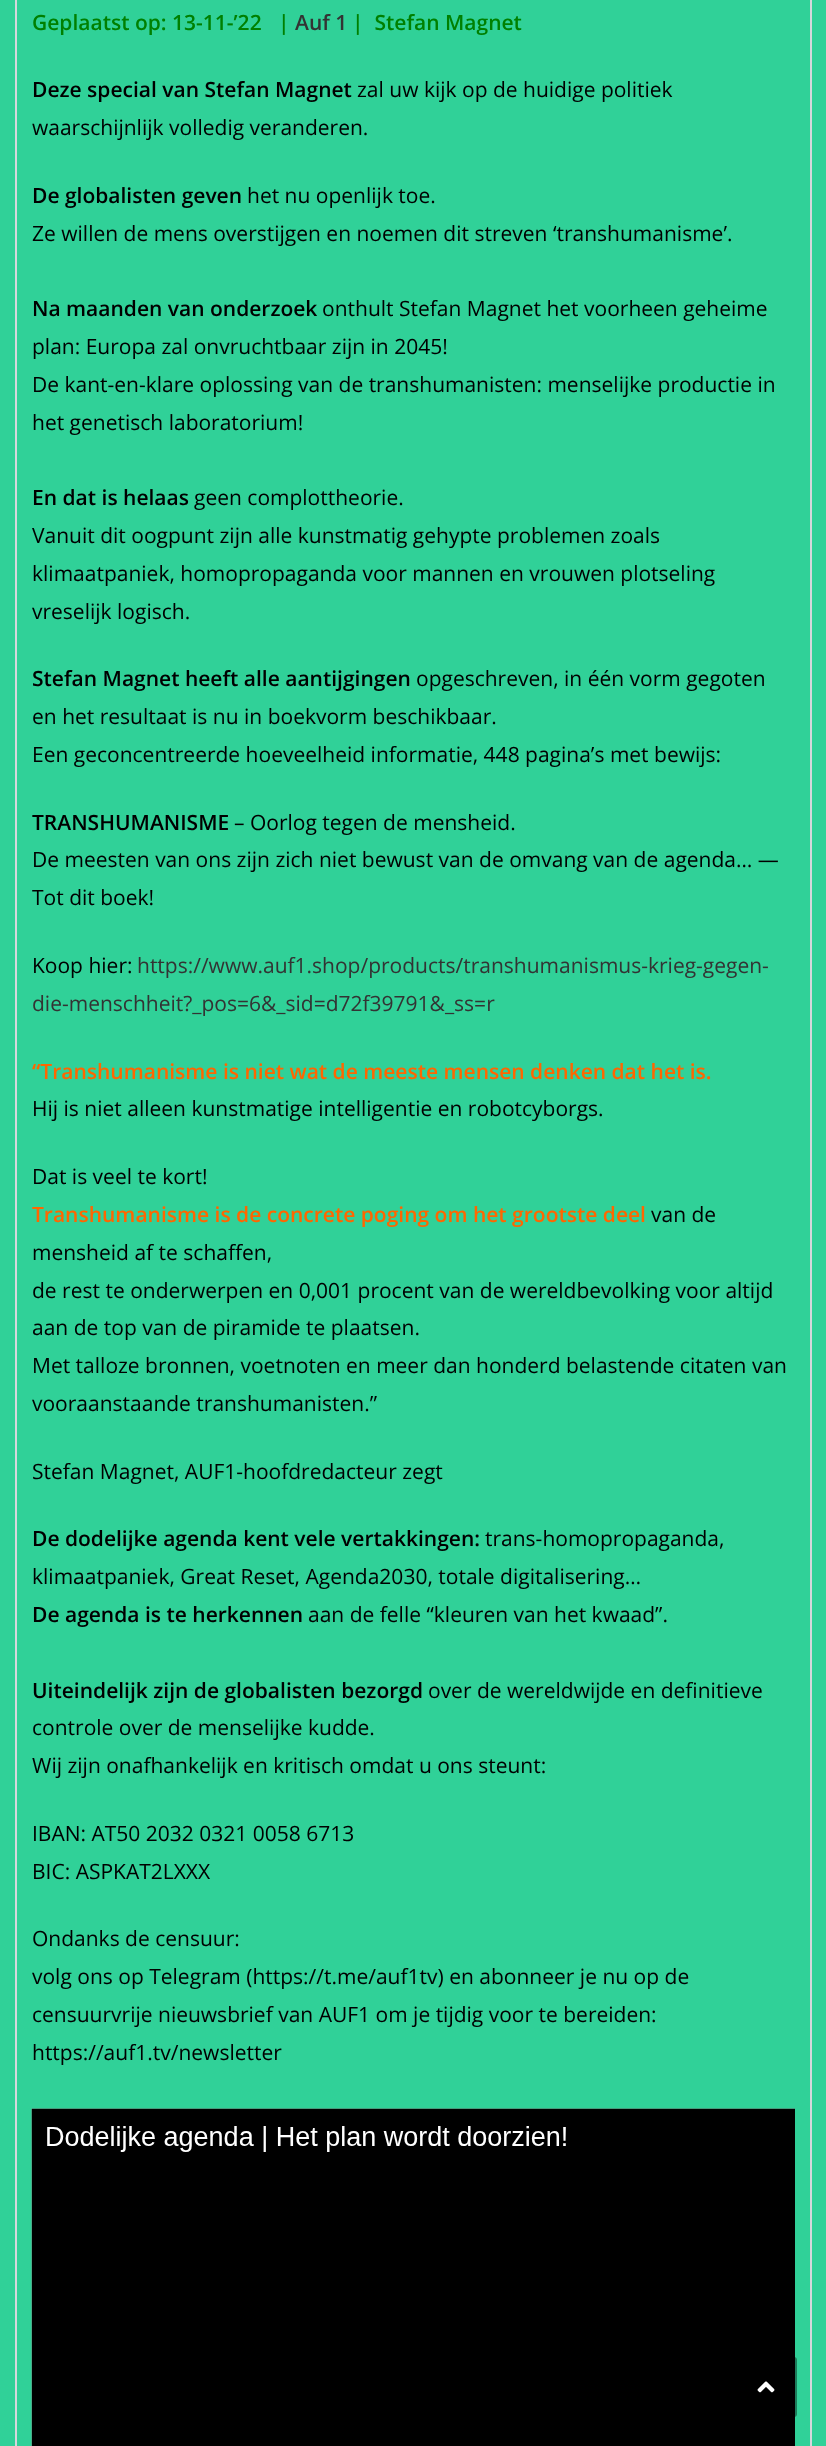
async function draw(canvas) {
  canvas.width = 826
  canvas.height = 2446
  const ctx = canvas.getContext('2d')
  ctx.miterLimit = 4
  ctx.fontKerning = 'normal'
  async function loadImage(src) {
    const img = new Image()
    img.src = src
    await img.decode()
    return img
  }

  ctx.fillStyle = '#30d198'
  ctx.fillRect(0, 0, 826, 2446)
  ctx.fillStyle = '#d5d8dc'
  ctx.fillRect(810, 0, 2, 2446)
  ctx.fillRect(15, 0, 2, 2446)
  ctx.font = '600 21px Open Sans'
  ctx.fillStyle = '#008000'
  ctx.fillText('Geplaatst op: 13-11-’22   |', 32, 30)
  ctx.fillStyle = '#333'
  ctx.fillText('Auf 1', 295, 30)
  ctx.fillStyle = '#008000'
  ctx.fillText('|  Stefan Magnet', 352, 30)
  ctx.fillStyle = '#000'
  ctx.fillText('Deze special van Stefan Magnet', 32, 97)
  ctx.font = '21px Open Sans'
  ctx.fillText('zal uw kijk op de huidige politiek', 357, 97)
  ctx.fillText('waarschijnlijk volledig veranderen.', 32, 135)
  ctx.font = '600 21px Open Sans'
  ctx.fillText('De globalisten geven', 32, 203)
  ctx.font = '21px Open Sans'
  ctx.fillText('het nu openlijk toe.', 247, 203)
  ctx.fillText('Ze willen de mens overstijgen en noemen dit streven ‘transhumanisme’.', 32, 241)
  ctx.font = '600 21px Open Sans'
  ctx.fillText('Na maanden van onderzoek', 32, 316)
  ctx.font = '21px Open Sans'
  ctx.fillText('onthult Stefan Magnet het voorheen geheime', 322, 316)
  ctx.fillText('plan: Europa zal onvruchtbaar zijn in 2045!', 32, 354)
  ctx.fillText('De kant-en-klare oplossing van de transhumanisten: menselijke productie in', 32, 392)
  ctx.fillText('het genetisch laboratorium!', 32, 430)
  ctx.font = '600 21px Open Sans'
  ctx.fillText('En dat is helaas', 32, 505)
  ctx.font = '21px Open Sans'
  ctx.fillText('geen complottheorie.', 194, 505)
  ctx.fillText('Vanuit dit oogpunt zijn alle kunstmatig gehypte problemen zoals', 32, 543)
  ctx.fillText('klimaatpaniek, homopropaganda voor mannen en vrouwen plotseling', 32, 581)
  ctx.fillText('vreselijk logisch.', 32, 619)
  ctx.font = '600 21px Open Sans'
  ctx.fillText('Stefan Magnet heeft alle aantijgingen', 32, 686)
  ctx.font = '21px Open Sans'
  ctx.fillText('opgeschreven, in één vorm gegoten', 416, 686)
  ctx.fillText('en het resultaat is nu in boekvorm beschikbaar.', 32, 724)
  ctx.fillText('Een geconcentreerde hoeveelheid informatie, 448 pagina’s met bewijs:', 32, 762)
  ctx.font = '600 21px Open Sans'
  ctx.fillText('TRANSHUMANISME', 32, 830)
  ctx.font = '21px Open Sans'
  ctx.fillText('– Oorlog tegen de mensheid.', 234, 830)
  ctx.fillText('De meesten van ons zijn zich niet bewust van de omvang van de agenda… —', 32, 867)
  ctx.fillText('Tot dit boek!', 32, 905)
  ctx.fillText('Koop hier:', 32, 973)
  ctx.fillStyle = '#333'
  ctx.fillText('https://www.auf1.shop/products/transhumanismus-krieg-gegen-', 137, 973)
  ctx.fillText('die-menschheit?_pos=6&_sid=d72f39791&_ss=r', 32, 1011)
  ctx.font = '600 21px Open Sans'
  ctx.fillStyle = '#f60'
  ctx.fillText('“Transhumanisme is niet wat de meeste mensen denken dat het is.', 32, 1079)
  ctx.font = '21px Open Sans'
  ctx.fillStyle = '#000'
  ctx.fillText('Hij is niet alleen kunstmatige intelligentie en robotcyborgs.', 32, 1116)
  ctx.fillText('Dat is veel te kort!', 32, 1184)
  ctx.font = '600 21px Open Sans'
  ctx.fillStyle = '#f60'
  ctx.fillText('Transhumanisme is de concrete poging om het grootste deel', 32, 1222)
  ctx.font = '21px Open Sans'
  ctx.fillStyle = '#000'
  ctx.fillText('van de', 651, 1222)
  ctx.fillText('mensheid af te schaffen,', 32, 1260)
  ctx.fillText('de rest te onderwerpen en 0,001 procent van de wereldbevolking voor altijd', 32, 1298)
  ctx.fillText('aan de top van de piramide te plaatsen.', 32, 1335)
  ctx.fillText('Met talloze bronnen, voetnoten en meer dan honderd belastende citaten van', 32, 1373)
  ctx.fillText('vooraanstaande transhumanisten.”', 32, 1411)
  ctx.fillText('Stefan Magnet, AUF1-hoofdredacteur zegt', 32, 1479)
  ctx.font = '600 21px Open Sans'
  ctx.fillText('De dodelijke agenda kent vele vertakkingen:', 32, 1546)
  ctx.font = '21px Open Sans'
  ctx.fillText('trans-homopropaganda,', 485, 1546)
  ctx.fillText('klimaatpaniek, Great Reset, Agenda2030, totale digitalisering…', 32, 1584)
  ctx.font = '600 21px Open Sans'
  ctx.fillText('De agenda is te herkennen', 32, 1622)
  ctx.font = '21px Open Sans'
  ctx.fillText('aan de felle “kleuren van het kwaad”.', 308, 1622)
  ctx.font = '600 21px Open Sans'
  ctx.fillText('Uiteindelijk zijn de globalisten bezorgd', 32, 1698)
  ctx.font = '21px Open Sans'
  ctx.fillText('over de wereldwijde en definitieve', 428, 1698)
  ctx.fillText('controle over de menselijke kudde.', 32, 1735)
  ctx.fillText('Wij zijn onafhankelijk en kritisch omdat u ons steunt:', 32, 1773)
  ctx.fillText('IBAN: AT50 2032 0321 0058 6713', 32, 1841)
  ctx.fillText('BIC: ASPKAT2LXXX', 32, 1879)
  ctx.fillText('Ondanks de censuur:', 32, 1946)
  ctx.fillText('volg ons op Telegram (https://t.me/auf1tv) en abonneer je nu op de', 32, 1984)
  ctx.fillText('censuurvrije nieuwsbrief van AUF1 om je tijdig voor te bereiden:', 32, 2022)
  ctx.fillText('https://auf1.tv/newsletter', 32, 2060)
  ctx.drawImage(await loadImage('image0.png'), 31, 2108, 764, 338)
  ctx.fillStyle = '#00000066'
  ctx.beginPath()
  ctx.roundRect(737, 2357, 60, 60, 3)
  ctx.fill()
  ctx.drawImage(await loadImage('image1.png'), 757, 2381, 18, 12)
}

draw(document.querySelector('canvas'))
